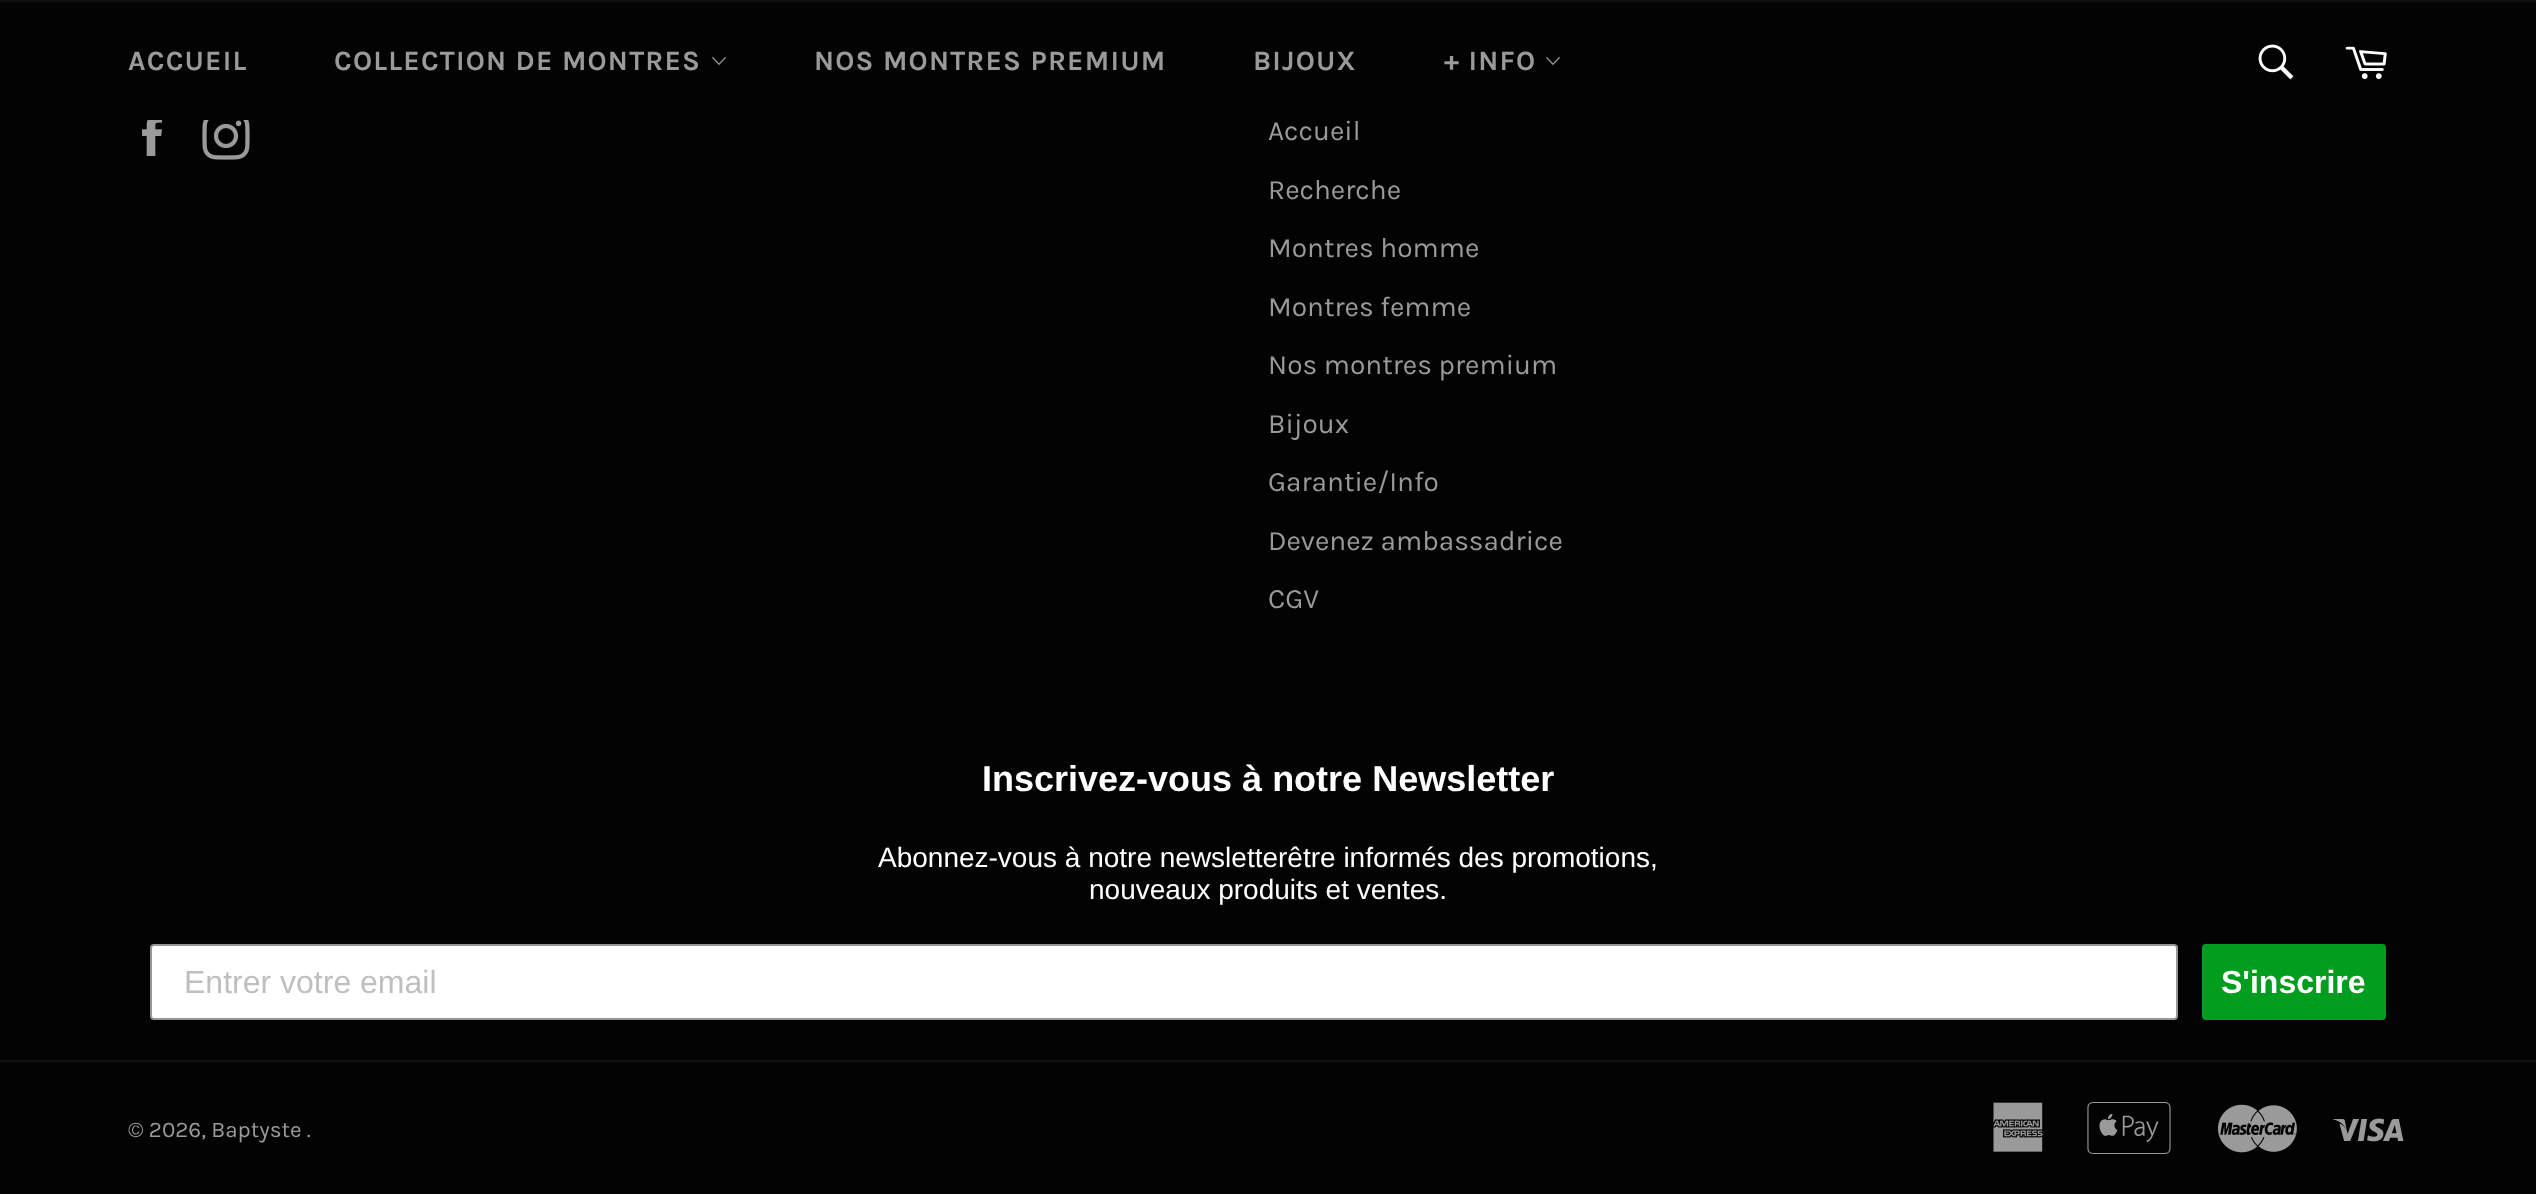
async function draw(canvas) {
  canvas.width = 2536
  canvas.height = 1194
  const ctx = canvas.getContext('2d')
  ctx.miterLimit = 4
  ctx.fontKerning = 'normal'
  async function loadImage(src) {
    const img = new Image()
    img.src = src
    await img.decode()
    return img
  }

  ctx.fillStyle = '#030303'
  ctx.fillRect(0, 0, 2536, 1194)
  ctx.fillStyle = '#101010'
  ctx.fillRect(0, 0, 2536, 2)
  ctx.letterSpacing = '1.2px'
  ctx.font = 'bold 28px Karla'
  ctx.fillStyle = '#9a9a9a'
  ctx.fillText('ACCUEIL', 128, 70)
  ctx.fillText('COLLECTION DE MONTRES', 334, 70)
  ctx.drawImage(await loadImage('image0.png'), 712, 56, 14, 9)
  ctx.fillText('NOS MONTRES PREMIUM', 814, 70)
  ctx.fillText('BIJOUX', 1253, 70)
  ctx.fillText('+ INFO', 1444, 70)
  ctx.drawImage(await loadImage('image0.png'), 1546, 56, 14, 9)
  ctx.drawImage(await loadImage('image1.png'), 2258, 44, 36, 36)
  ctx.drawImage(await loadImage('image2.png'), 2345, 46, 42, 33)
  ctx.drawImage(await loadImage('image3.png'), 142, 120, 20, 36)
  ctx.drawImage(await loadImage('image4.png'), 202, 120, 48, 40)
  ctx.letterSpacing = '0px'
  ctx.font = '28px Karla'
  ctx.fillText('Accueil', 1268, 140)
  ctx.fillText('Recherche', 1268, 199)
  ctx.fillText('Montres homme', 1268, 257)
  ctx.fillText('Montres femme', 1268, 316)
  ctx.fillText('Nos montres premium', 1268, 374)
  ctx.fillText('Bijoux', 1268, 433)
  ctx.fillText('Garantie/Info', 1268, 491)
  ctx.fillText('Devenez ambassadrice', 1268, 550)
  ctx.fillText('CGV', 1268, 608)
  ctx.font = 'bold 36px Liberation Sans'
  ctx.fillStyle = '#fff'
  ctx.fillText('Inscrivez-vous à notre Newsletter', 982, 791)
  ctx.font = '28px Liberation Sans'
  ctx.fillText('Abonnez-vous à notre newsletterêtre informés des promotions,', 878, 867)
  ctx.fillText('nouveaux produits et ventes.', 1089, 899)
  ctx.beginPath()
  ctx.roundRect(151, 945, 2026, 74, 3)
  ctx.fill()
  ctx.strokeStyle = '#949596'
  ctx.lineWidth = 2
  ctx.stroke()
  ctx.font = '32px Liberation Sans'
  ctx.fillStyle = '#bfbfc0'
  ctx.fillText('Entrer votre email', 184, 993)
  ctx.fillStyle = '#009d1e'
  ctx.beginPath()
  ctx.roundRect(2202, 944, 184, 76, 4)
  ctx.fill()
  ctx.font = 'bold 32px Liberation Sans'
  ctx.fillStyle = '#fff'
  ctx.fillText('S\'inscrire', 2221, 993)
  ctx.fillStyle = '#101010'
  ctx.fillRect(0, 1060, 2536, 2)
  ctx.font = '22.5px Karla'
  ctx.fillStyle = '#9a9a9a'
  ctx.fillText('© 2026, Baptyste .', 128, 1137)
  ctx.drawImage(await loadImage('image5.png'), 1993, 1102, 50, 50)
  ctx.drawImage(await loadImage('image6.png'), 2087, 1102, 84, 52)
  ctx.drawImage(await loadImage('image7.png'), 2218, 1104, 79, 49)
  ctx.drawImage(await loadImage('image8.png'), 2333, 1118, 71, 24)
}

draw(document.querySelector('canvas'))
